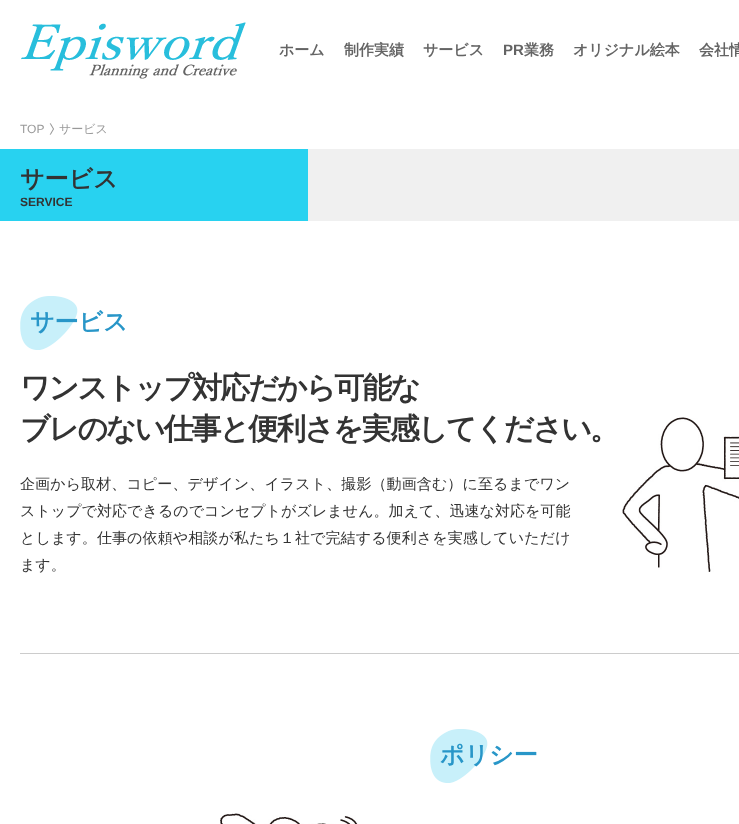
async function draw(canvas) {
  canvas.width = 739
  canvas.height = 824
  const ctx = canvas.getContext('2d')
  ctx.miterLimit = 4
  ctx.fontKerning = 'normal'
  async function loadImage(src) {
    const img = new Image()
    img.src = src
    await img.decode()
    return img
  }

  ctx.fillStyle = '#fff'
  ctx.fillRect(0, 0, 739, 824)
  ctx.drawImage(await loadImage('image0.png'), 21, 22, 225, 57)
  ctx.font = 'bold 15px WenQuanYi Zen Hei'
  ctx.fillStyle = '#646464'
  ctx.fillText('ホーム', 279, 55)
  ctx.fillText('制作実績', 344, 55)
  ctx.fillText('サービス', 423, 55)
  ctx.font = 'bold 15px Liberation Sans'
  ctx.fillText('PR', 503, 55)
  ctx.font = 'bold 15px WenQuanYi Zen Hei'
  ctx.fillText('業務', 524, 55)
  ctx.fillText('オリジナル絵本', 573, 55)
  ctx.fillText('会社情', 699, 55)
  ctx.font = '12px Liberation Sans'
  ctx.fillStyle = '#999'
  ctx.fillText('TOP', 20, 133)
  ctx.drawImage(await loadImage('image1.png'), 49, 123, 5, 12)
  ctx.font = '500 12px WenQuanYi Zen Hei'
  ctx.fillText('サービス', 59, 133)
  ctx.fillStyle = '#28d2f0'
  ctx.fillRect(0, 149, 308, 72)
  ctx.fillStyle = '#f0f0f0'
  ctx.fillRect(308, 149, 431, 72)
  ctx.font = 'bold 24px WenQuanYi Zen Hei'
  ctx.fillStyle = '#333'
  ctx.fillText('サービス', 20, 187)
  ctx.font = 'bold 12px Liberation Sans'
  ctx.fillText('SERVICE', 20, 206)
  ctx.drawImage(await loadImage('image2.png'), 622, 417, 117, 155)
  ctx.fillStyle = '#ccc'
  ctx.fillRect(20, 653, 719, 1)
  ctx.drawImage(await loadImage('image3.png'), 20, 296, 58, 54)
  ctx.font = 'bold 24px WenQuanYi Zen Hei'
  ctx.fillStyle = '#2896c8'
  ctx.fillText('サービス', 30, 330)
  ctx.letterSpacing = '-2px'
  ctx.font = 'bold 30px WenQuanYi Zen Hei'
  ctx.fillStyle = '#333'
  ctx.fillText('ワンストップ対応だから可能な', 20, 398)
  ctx.fillText('ブレのない仕事と便利さを実感してください。', 20, 439)
  ctx.letterSpacing = '0.1px'
  ctx.font = '500 15px WenQuanYi Zen Hei'
  ctx.fillText('企画から取材、コピー、デザイン、イラスト、撮影（動画含む）に至るまでワン', 20, 489)
  ctx.letterSpacing = '0.05px'
  ctx.fillText('ストップで対応できるのでコンセプトがズレません。加えて、迅速な対応を可能', 20, 516)
  ctx.letterSpacing = '0.1px'
  ctx.fillText('とします。仕事の依頼や相談が私たち１社で完結する便利さを実感していただけ', 20, 543)
  ctx.letterSpacing = '0px'
  ctx.fillText('ます。', 20, 570)
  ctx.drawImage(await loadImage('image4.png'), 220, 813, 138, 11)
  ctx.drawImage(await loadImage('image3.png'), 430, 729, 58, 54)
  ctx.font = 'bold 24px WenQuanYi Zen Hei'
  ctx.fillStyle = '#2896c8'
  ctx.fillText('ポリシー', 440, 763)
}

draw(document.querySelector('canvas'))
